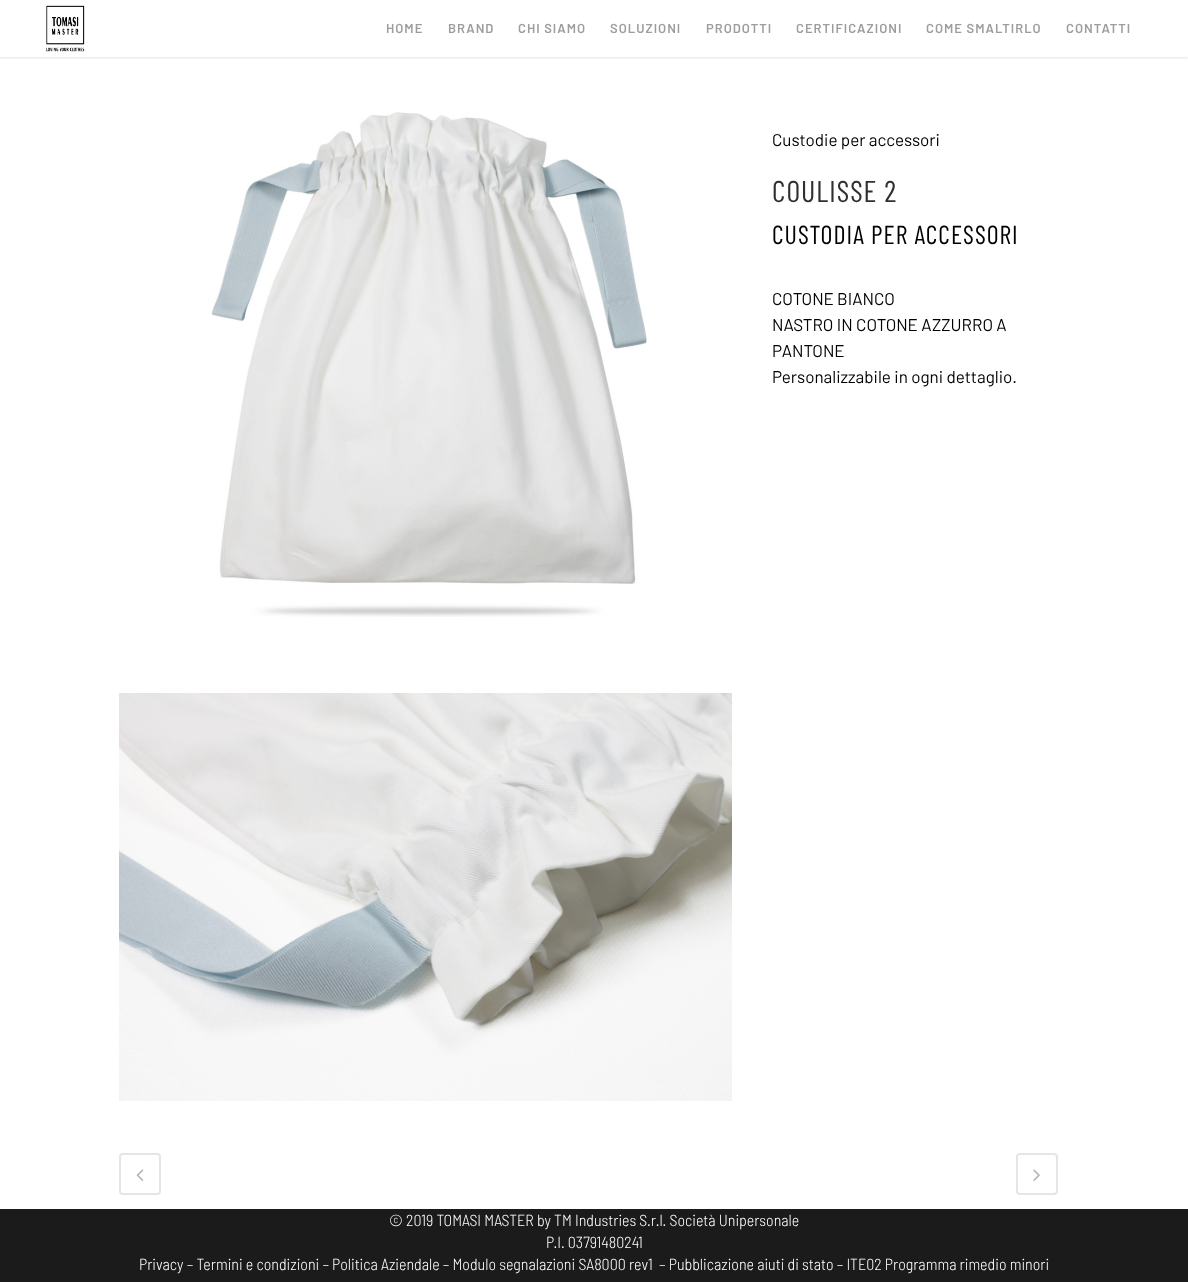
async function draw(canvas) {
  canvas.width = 1188
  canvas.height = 1282
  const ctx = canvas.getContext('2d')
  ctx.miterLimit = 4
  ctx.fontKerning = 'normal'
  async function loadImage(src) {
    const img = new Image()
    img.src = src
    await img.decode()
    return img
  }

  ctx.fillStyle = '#fff'
  ctx.fillRect(0, 0, 1188, 1282)
  ctx.save()
  ctx.beginPath()
  ctx.rect(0, 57, 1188, 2)
  ctx.clip()
  ctx.fillStyle = '#0000001c'
  ctx.filter = 'blur(1.5px)'
  ctx.beginPath()
  ctx.rect(0, 1, 1188, 57)
  ctx.fill()
  ctx.filter = 'none'
  ctx.restore()
  ctx.drawImage(await loadImage('image0.png'), 46, 5, 39, 47)
  ctx.letterSpacing = '1px'
  ctx.font = '600 13px Barlow'
  ctx.fillStyle = '#9d9d9d'
  ctx.fillText('HOME', 386, 33)
  ctx.fillText('BRAND', 448, 33)
  ctx.fillText('CHI SIAMO', 518, 33)
  ctx.fillText('SOLUZIONI', 610, 33)
  ctx.fillText('PRODOTTI', 706, 33)
  ctx.fillText('CERTIFICAZIONI', 796, 33)
  ctx.fillText('COME SMALTIRLO', 926, 33)
  ctx.fillText('CONTATTI', 1066, 33)
  ctx.drawImage(await loadImage('image1.png'), 211, 112, 436, 505)
  ctx.drawImage(await loadImage('image2.png'), 119, 693, 613, 408)
  ctx.letterSpacing = '0px'
  ctx.font = '17px Barlow'
  ctx.fillStyle = '#000'
  ctx.fillText('Custodie per accessori', 772, 146)
  ctx.letterSpacing = '1px'
  ctx.font = '30px Barlow Condensed'
  ctx.fillStyle = '#303030'
  ctx.fillText('COULISSE 2', 772, 202)
  ctx.font = '26px Barlow Condensed'
  ctx.fillStyle = '#000'
  ctx.fillText('CUSTODIA PER ACCESSORI', 772, 244)
  ctx.letterSpacing = '0px'
  ctx.font = '17px Barlow'
  ctx.fillText('COTONE BIANCO', 772, 305)
  ctx.fillText('NASTRO IN COTONE AZZURRO A', 772, 331)
  ctx.fillText('PANTONE', 772, 357)
  ctx.fillText('Personalizzabile in ogni dettaglio.', 772, 383)
  ctx.beginPath()
  ctx.roundRect(120, 1154, 40, 40, 3)
  ctx.strokeStyle = '#e5e5e5'
  ctx.lineWidth = 2
  ctx.stroke()
  ctx.drawImage(await loadImage('image3.png'), 136, 1169, 8, 12)
  ctx.beginPath()
  ctx.roundRect(1017, 1154, 40, 40, 3)
  ctx.stroke()
  ctx.drawImage(await loadImage('image4.png'), 1033, 1169, 7, 12)
  ctx.fillStyle = '#1b1b1b'
  ctx.fillRect(0, 1209, 1188, 73)
  ctx.font = '300 16px Barlow Semi Condensed'
  ctx.fillStyle = '#fff'
  ctx.fillText('© 2019 TOMASI MASTER by TM Industries S.r.l. Società Unipersonale', 389, 1226)
  ctx.fillText('P.I. 03791480241', 546, 1248)
  ctx.fillText('Privacy – Termini e condizioni – Politica Aziendale – Modulo segnalazioni SA8000 rev1', 139, 1270)
  ctx.fillText('– Pubblicazione aiuti di stato – ITE02 Programma rimedio minori', 659, 1270)
}

draw(document.querySelector('canvas'))
